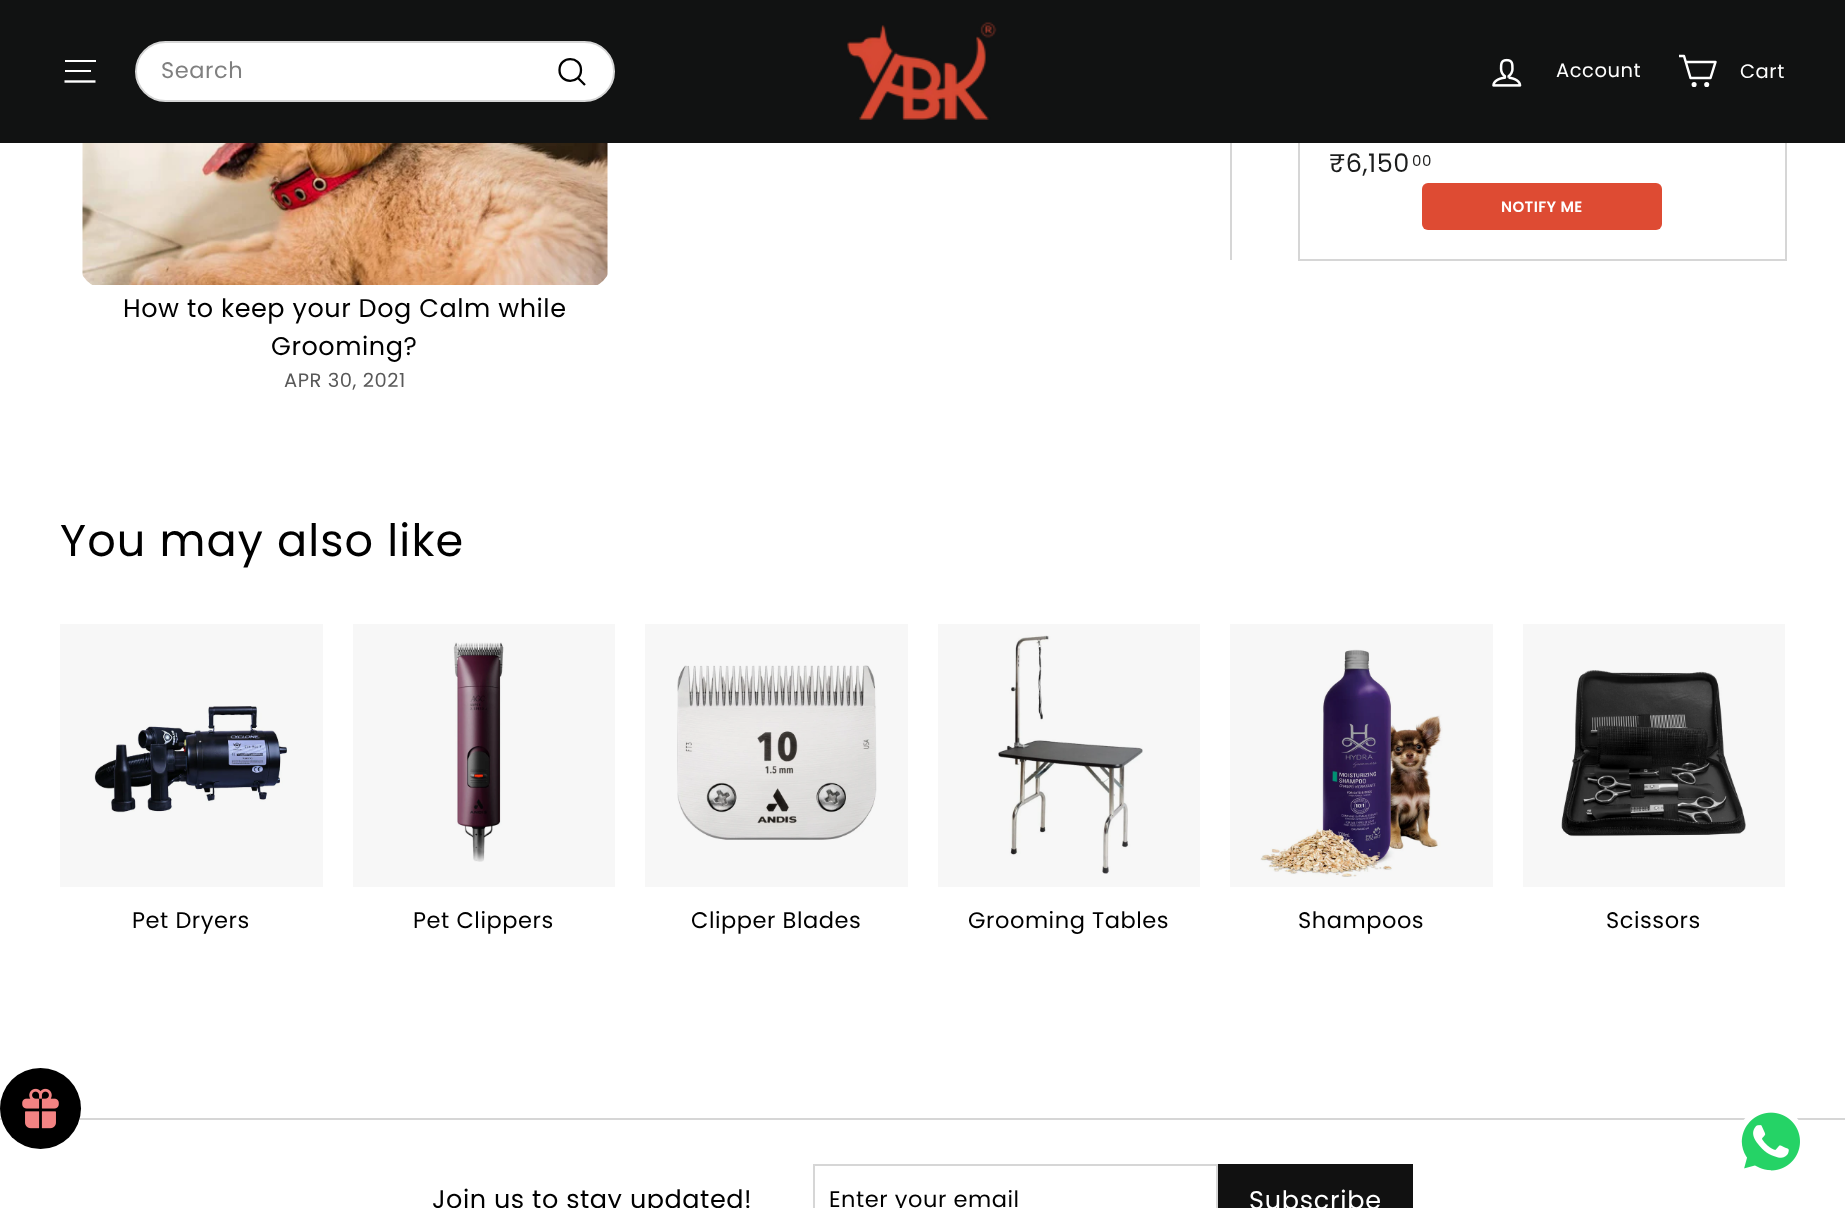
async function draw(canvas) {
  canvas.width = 1845
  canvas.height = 1208
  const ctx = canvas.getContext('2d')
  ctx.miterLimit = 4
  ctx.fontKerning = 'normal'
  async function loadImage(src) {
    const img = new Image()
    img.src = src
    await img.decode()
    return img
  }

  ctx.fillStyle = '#fff'
  ctx.fillRect(0, 0, 1845, 1208)
  ctx.fillStyle = '#d6d6d6'
  ctx.fillRect(0, 1118, 1845, 2)
  ctx.fillStyle = '#000'
  ctx.beginPath()
  ctx.arc(40.5, 1108.5, 40.5, 0, 2 * Math.PI)
  ctx.fill()
  ctx.drawImage(await loadImage('image0.png'), 22, 1088, 37, 41)
  ctx.fillStyle = '#de4b33'
  ctx.beginPath()
  ctx.roundRect(1422, 183, 240, 47, 6)
  ctx.fill()
  ctx.strokeStyle = '#d6d6d6'
  ctx.lineWidth = 2
  ctx.strokeRect(1299, -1, 487, 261)
  ctx.fillStyle = '#111212'
  ctx.fillRect(0, 0, 1845, 143)
  ctx.fillStyle = '#fff'
  ctx.fillRect(65, 60, 31, 2)
  ctx.fillRect(65, 70, 26, 2)
  ctx.beginPath()
  ctx.moveTo(64.5, 81.5)
  ctx.lineTo(95.5, 81.5)
  ctx.strokeStyle = '#fff'
  ctx.lineWidth = 2.4
  ctx.lineJoin = 'round'
  ctx.stroke()
  ctx.beginPath()
  ctx.roundRect(136, 42, 478, 59, 29.5)
  ctx.fill()
  ctx.strokeStyle = '#d6d6d6'
  ctx.lineWidth = 2
  ctx.lineJoin = 'miter'
  ctx.stroke()
  ctx.letterSpacing = '0.55px'
  ctx.font = '22.5px Poppins'
  ctx.fillStyle = '#808080'
  ctx.fillText('Search', 161, 78)
  ctx.beginPath()
  ctx.moveTo(581, 70)
  ctx.bezierCurveTo(581, 84.5, 559.5, 84.5, 559.5, 70)
  ctx.bezierCurveTo(559.5, 55.5, 581, 55.5, 581, 70)
  ctx.moveTo(585, 85)
  ctx.lineTo(578, 78)
  ctx.strokeStyle = '#000'
  ctx.lineWidth = 2.3
  ctx.lineJoin = 'round'
  ctx.stroke()
  ctx.drawImage(await loadImage('image1.png'), 847, 22, 150, 98)
  ctx.drawImage(await loadImage('image2.png'), 1492, 58, 30, 29)
  ctx.font = '19.5px Poppins'
  ctx.fillStyle = '#fff'
  ctx.fillText('Account', 1556, 77)
  ctx.beginPath()
  ctx.moveTo(1686, 62)
  ctx.lineTo(1715.5, 62)
  ctx.lineTo(1710.5, 78)
  ctx.lineTo(1690.5, 78)
  ctx.lineTo(1684, 56)
  ctx.lineTo(1679, 56)
  ctx.strokeStyle = '#fff'
  ctx.lineWidth = 2.5
  ctx.stroke()
  ctx.beginPath()
  ctx.arc(1694.1, 84.5, 1.3, 0, 2 * Math.PI)
  ctx.stroke()
  ctx.beginPath()
  ctx.arc(1706.7, 84.5, 1.3, 0, 2 * Math.PI)
  ctx.stroke()
  ctx.fillText('Cart', 1740, 78)
  ctx.fillStyle = '#d6d6d6'
  ctx.fillRect(1230, 143, 2, 117)
  ctx.font = '25.5px Poppins'
  ctx.fillStyle = '#1c1d1d'
  ctx.fillText('₹6,150', 1329, 172)
  ctx.font = '15px Poppins'
  ctx.fillText('00', 1412, 166)
  ctx.letterSpacing = '0.4px'
  ctx.font = '600 15px Poppins'
  ctx.fillStyle = '#fff'
  ctx.fillText('NOTIFY ME', 1501, 212)
  ctx.drawImage(await loadImage('image3.png'), 82, 143, 526, 142)
  ctx.letterSpacing = '0.55px'
  ctx.font = '25.5px Poppins'
  ctx.fillStyle = '#000'
  ctx.fillText('How to keep your Dog Calm while', 123, 317)
  ctx.fillText('Grooming?', 271, 355)
  ctx.font = '19.5px Poppins'
  ctx.fillStyle = '#595959'
  ctx.fillText('APR 30, 2021', 284, 387)
  ctx.letterSpacing = '1.1px'
  ctx.font = '44.6px Poppins'
  ctx.fillStyle = '#000'
  ctx.fillText('You may also like', 60, 556)
  ctx.drawImage(await loadImage('image4.png'), 94, 706, 193, 107)
  ctx.fillStyle = '#00000008'
  ctx.fillRect(60, 624, 263, 263)
  ctx.letterSpacing = '0.55px'
  ctx.font = '22.5px Poppins'
  ctx.fillStyle = '#000'
  ctx.fillText('Pet Dryers', 132, 928)
  ctx.drawImage(await loadImage('image5.png'), 453, 642, 51, 220)
  ctx.fillStyle = '#00000008'
  ctx.fillRect(353, 624, 262, 263)
  ctx.fillStyle = '#000'
  ctx.fillText('Pet Clippers', 413, 928)
  ctx.drawImage(await loadImage('image6.png'), 677, 665, 200, 175)
  ctx.fillStyle = '#00000008'
  ctx.fillRect(645, 624, 263, 263)
  ctx.fillStyle = '#000'
  ctx.fillText('Clipper Blades', 691, 928)
  ctx.drawImage(await loadImage('image7.png'), 998, 635, 145, 239)
  ctx.fillStyle = '#00000008'
  ctx.fillRect(938, 624, 262, 263)
  ctx.fillStyle = '#000'
  ctx.fillText('Grooming Tables', 968, 928)
  ctx.drawImage(await loadImage('image8.png'), 1260, 649, 183, 228)
  ctx.fillStyle = '#00000008'
  ctx.fillRect(1230, 624, 263, 263)
  ctx.fillStyle = '#000'
  ctx.fillText('Shampoos', 1298, 928)
  ctx.drawImage(await loadImage('image9.png'), 1561, 670, 185, 167)
  ctx.fillStyle = '#00000008'
  ctx.fillRect(1523, 624, 262, 263)
  ctx.fillStyle = '#000'
  ctx.fillText('Scissors', 1606, 928)
  ctx.font = '25.5px Poppins'
  ctx.fillText('Join us to stay updated!', 432, 1208)
  ctx.strokeStyle = '#d6d6d6'
  ctx.lineWidth = 2
  ctx.lineJoin = 'miter'
  ctx.strokeRect(814, 1165, 403, 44)
  ctx.font = '22.5px Poppins'
  ctx.fillText('Enter your email', 829, 1207)
  ctx.fillStyle = '#111'
  ctx.fillRect(1218, 1164, 195, 44)
  ctx.letterSpacing = '0.75px'
  ctx.font = '25.5px Poppins'
  ctx.fillStyle = '#fff'
  ctx.fillText('Subscribe', 1249, 1209)
  ctx.drawImage(await loadImage('image10.png'), 1741, 1112, 59, 59)
}

draw(document.querySelector('canvas'))
